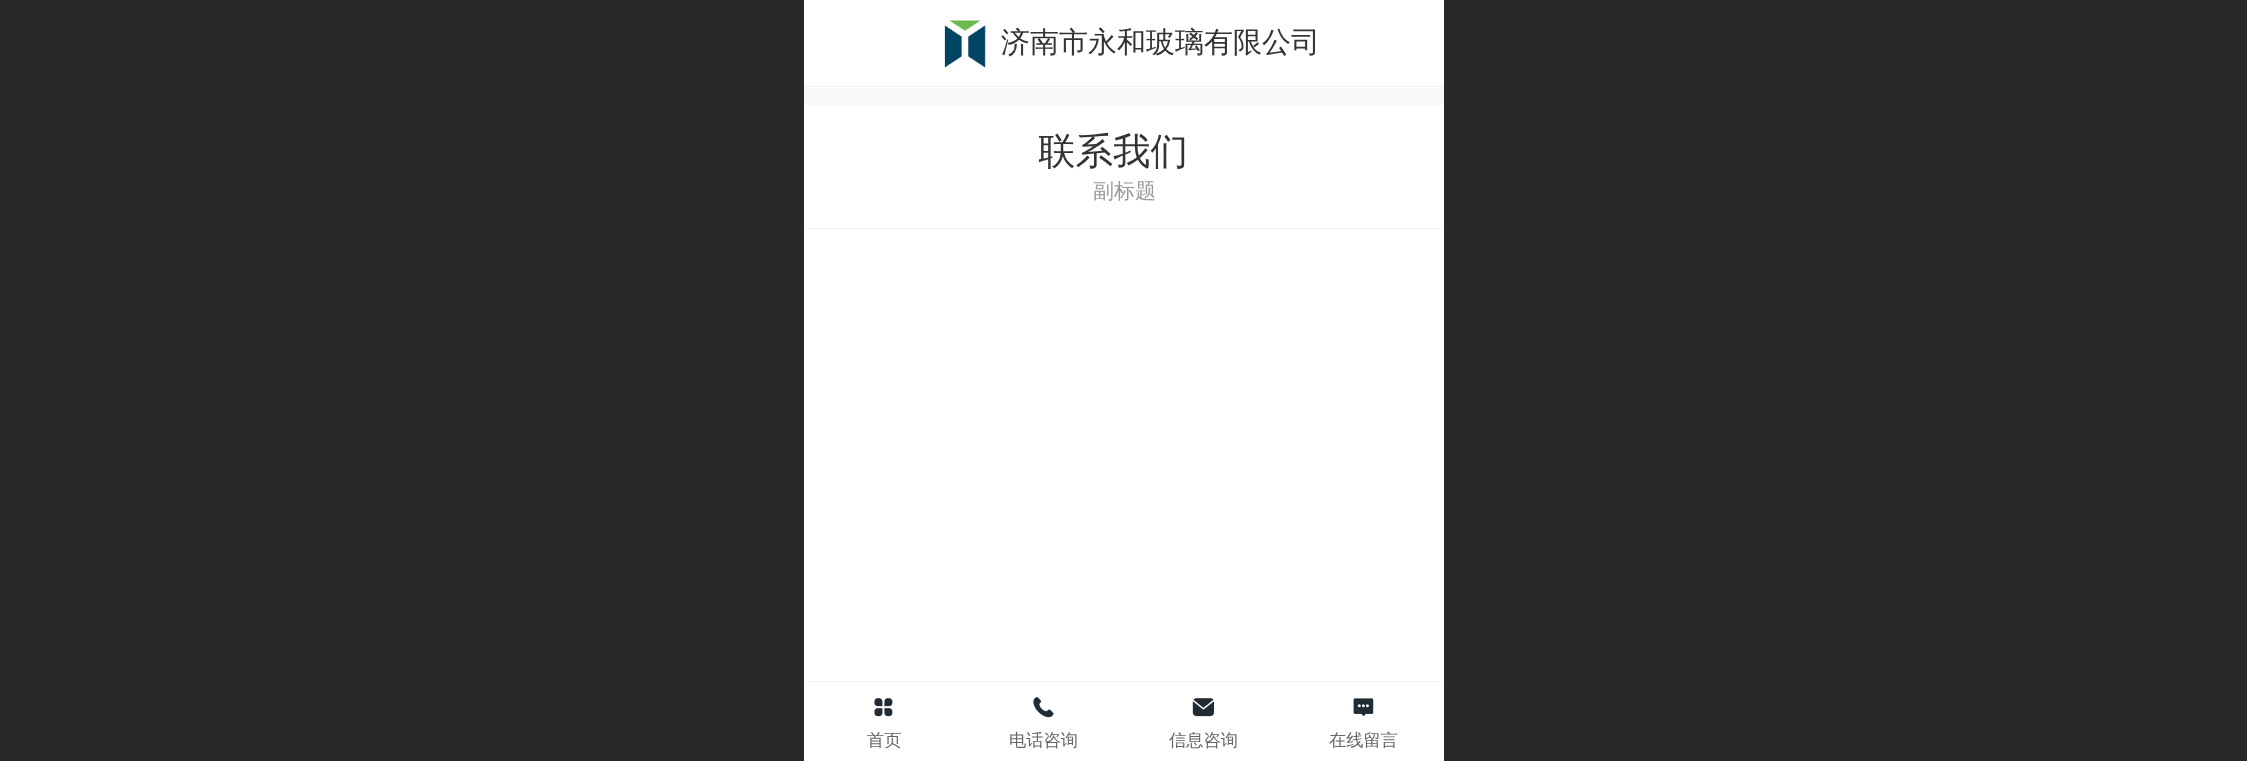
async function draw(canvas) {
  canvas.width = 2247
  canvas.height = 761
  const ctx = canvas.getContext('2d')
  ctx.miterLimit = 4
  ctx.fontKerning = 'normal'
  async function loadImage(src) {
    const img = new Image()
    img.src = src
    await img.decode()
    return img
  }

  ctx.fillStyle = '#f8f8f8'
  ctx.fillRect(0, 0, 2247, 761)
  ctx.fillStyle = '#282828'
  ctx.fillRect(0, 0, 804, 761)
  ctx.fillStyle = '#fff'
  ctx.fillRect(804, 0, 640, 88)
  ctx.fillStyle = '#eee'
  ctx.fillRect(804, 86, 640, 1)
  ctx.drawImage(await loadImage('image0.png'), 944, 20, 42, 48)
  ctx.font = '500 29px WenQuanYi Zen Hei'
  ctx.fillStyle = '#333'
  ctx.fillText('济南市永和玻璃有限公司', 1001, 52)
  ctx.fillStyle = '#fff'
  ctx.fillRect(804, 105, 640, 123)
  ctx.fillStyle = '#f3f3f3'
  ctx.fillRect(804, 228, 640, 1)
  ctx.save()
  ctx.beginPath()
  ctx.rect(1039, 128, 170, 78)
  ctx.clip()
  ctx.font = '500 37.5px WenQuanYi Zen Hei'
  ctx.fillStyle = '#333'
  ctx.fillText('联系我们', 1038, 164)
  ctx.restore()
  ctx.font = '500 21px WenQuanYi Zen Hei'
  ctx.fillStyle = '#999'
  ctx.fillText('副标题', 1093, 198)
  ctx.fillStyle = '#fff'
  ctx.fillRect(804, 229, 640, 532)
  ctx.fillStyle = '#f4f4f4'
  ctx.fillRect(804, 681, 640, 1)
  ctx.drawImage(await loadImage('image1.png'), 874, 698, 19, 19)
  ctx.font = '500 17.25px WenQuanYi Zen Hei'
  ctx.fillStyle = '#666'
  ctx.fillText('首页', 867, 746)
  ctx.drawImage(await loadImage('image2.png'), 1033, 697, 21, 21)
  ctx.fillText('电话咨询', 1009, 746)
  ctx.drawImage(await loadImage('image3.png'), 1192, 698, 22, 19)
  ctx.fillText('信息咨询', 1169, 746)
  ctx.drawImage(await loadImage('image4.png'), 1353, 698, 21, 18)
  ctx.fillText('在线留言', 1329, 746)
  ctx.fillStyle = '#282828'
  ctx.fillRect(1444, 0, 803, 761)
}

draw(document.querySelector('canvas'))
